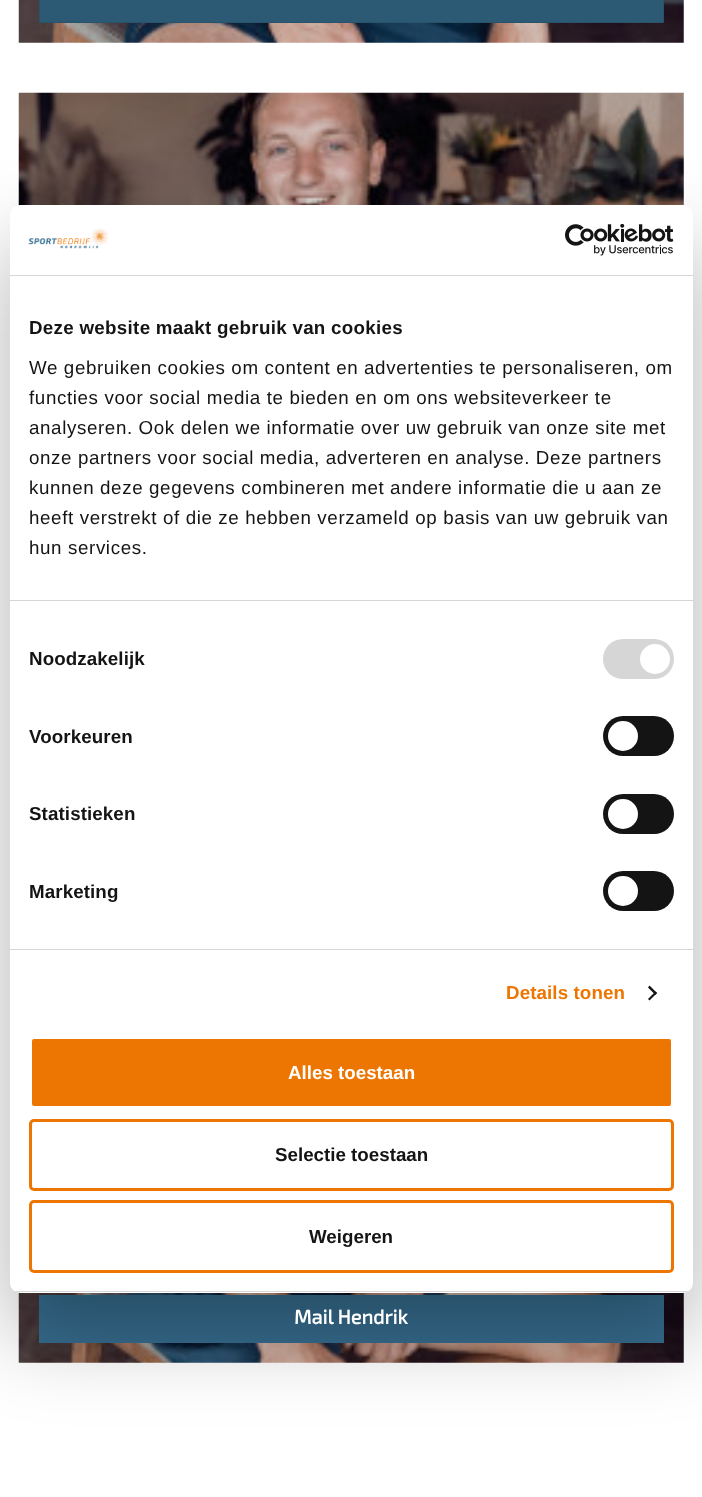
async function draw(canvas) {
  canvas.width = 702
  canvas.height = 1497
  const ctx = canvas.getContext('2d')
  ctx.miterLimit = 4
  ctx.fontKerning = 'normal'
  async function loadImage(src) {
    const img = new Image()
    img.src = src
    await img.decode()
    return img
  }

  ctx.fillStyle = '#fff'
  ctx.fillRect(0, 0, 702, 1497)
  ctx.drawImage(await loadImage('image3.png'), 18, 92, 666, 114)
  ctx.drawImage(await loadImage('image4.png'), 18, 1292, 666, 71)
  ctx.fillStyle = '#376e90'
  ctx.fillRect(39, 1295, 625, 48)
  ctx.fillStyle = '#0000004d'
  ctx.filter = 'blur(42.5px)'
  ctx.beginPath()
  ctx.roundRect(10, 245, 683, 1088, 10)
  ctx.fill()
  ctx.filter = 'none'
  ctx.fillStyle = '#fff'
  ctx.beginPath()
  ctx.roundRect(10, 205, 683, 1088, 10)
  ctx.fill()
  ctx.fillStyle = '#d6d6d6'
  ctx.fillRect(10, 275, 683, 1)
  ctx.drawImage(await loadImage('image0.png'), 28, 228, 81, 21)
  ctx.drawImage(await loadImage('image1.png'), 565, 224, 109, 32)
  ctx.fillRect(10, 600, 683, 1)
  ctx.letterSpacing = '0.3px'
  ctx.font = 'bold 18.75px Liberation Sans'
  ctx.fillStyle = '#141414'
  ctx.fillText('Deze website maakt gebruik van cookies', 29, 334)
  ctx.letterSpacing = '0.62px'
  ctx.font = '18.75px Liberation Sans'
  ctx.fillText('We gebruiken cookies om content en advertenties te personaliseren, om', 29, 374)
  ctx.fillText('functies voor social media te bieden en om ons websiteverkeer te', 29, 404)
  ctx.fillText('analyseren. Ook delen we informatie over uw gebruik van onze site met', 29, 434)
  ctx.fillText('onze partners voor social media, adverteren en analyse. Deze partners', 29, 464)
  ctx.fillText('kunnen deze gegevens combineren met andere informatie die u aan ze', 29, 494)
  ctx.fillText('heeft verstrekt of die ze hebben verzameld op basis van uw gebruik van', 29, 524)
  ctx.fillText('hun services.', 29, 554)
  ctx.fillStyle = '#d6d6d6'
  ctx.fillRect(10, 949, 683, 1)
  ctx.letterSpacing = '0.1px'
  ctx.font = 'bold 18.75px Liberation Sans'
  ctx.fillStyle = '#141414'
  ctx.fillText('Noodzakelijk', 29, 665)
  ctx.fillStyle = '#d6d6d6'
  ctx.beginPath()
  ctx.roundRect(603, 639, 71, 40, 20)
  ctx.fill()
  ctx.fillStyle = '#fff'
  ctx.beginPath()
  ctx.arc(655, 659, 15, 0, 2 * Math.PI)
  ctx.fill()
  ctx.fillStyle = '#141414'
  ctx.fillText('Voorkeuren', 29, 743)
  ctx.beginPath()
  ctx.roundRect(603, 716, 71, 40, 20)
  ctx.fill()
  ctx.fillStyle = '#fff'
  ctx.beginPath()
  ctx.arc(623, 736, 15, 0, 2 * Math.PI)
  ctx.fill()
  ctx.fillStyle = '#141414'
  ctx.fillText('Statistieken', 29, 820)
  ctx.beginPath()
  ctx.roundRect(603, 794, 71, 40, 20)
  ctx.fill()
  ctx.fillStyle = '#fff'
  ctx.beginPath()
  ctx.arc(623, 814, 15, 0, 2 * Math.PI)
  ctx.fill()
  ctx.fillStyle = '#141414'
  ctx.fillText('Marketing', 29, 898)
  ctx.beginPath()
  ctx.roundRect(603, 871, 71, 40, 20)
  ctx.fill()
  ctx.fillStyle = '#fff'
  ctx.beginPath()
  ctx.arc(623, 891, 15, 0, 2 * Math.PI)
  ctx.fill()
  ctx.fillStyle = '#ed7602'
  ctx.fillText('Details tonen', 506, 999)
  ctx.fillStyle = '#141414'
  ctx.beginPath()
  ctx.moveTo(649.5, 985.5)
  ctx.lineTo(657, 993)
  ctx.lineTo(655.5, 995)
  ctx.lineTo(648, 987.5)
  ctx.closePath()
  ctx.fill()
  ctx.beginPath()
  ctx.moveTo(655.5, 991.5)
  ctx.lineTo(657, 993)
  ctx.lineTo(649.5, 1000.5)
  ctx.lineTo(648, 999)
  ctx.closePath()
  ctx.fill()
  ctx.save()
  ctx.beginPath()
  ctx.roundRect(10, 205, 683, 1088, 10)
  ctx.clip()
  ctx.fillStyle = '#d6d6d6'
  ctx.fillRect(10, 1291, 683, 1)
  ctx.restore()
  ctx.fillStyle = '#ed7602'
  ctx.beginPath()
  ctx.roundRect(30.5, 1037.5, 642, 70, 3.5)
  ctx.fill()
  ctx.strokeStyle = '#fff'
  ctx.lineWidth = 3
  ctx.stroke()
  ctx.letterSpacing = '0px'
  ctx.fillStyle = '#fff'
  ctx.fillText('Alles toestaan', 288, 1079)
  ctx.beginPath()
  ctx.roundRect(30.5, 1120.5, 642, 69, 3.5)
  ctx.strokeStyle = '#ed7602'
  ctx.stroke()
  ctx.fillStyle = '#141414'
  ctx.fillText('Selectie toestaan', 275, 1161)
  ctx.beginPath()
  ctx.roundRect(30.5, 1201.5, 642, 70, 3.5)
  ctx.stroke()
  ctx.fillText('Weigeren', 309, 1243)
  ctx.drawImage(await loadImage('image2.png'), 18, 0, 666, 43)
  ctx.fillStyle = '#2c5974'
  ctx.beginPath()
  ctx.rect(39.5, -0.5, 624, 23)
  ctx.fill()
  ctx.strokeStyle = '#29526b'
  ctx.lineWidth = 1
  ctx.stroke()
  ctx.font = 'bold 20px "Exo 2"'
  ctx.fillStyle = '#fff'
  ctx.fillText('Mail Hendrik', 294, 1324)
}

draw(document.querySelector('canvas'))
